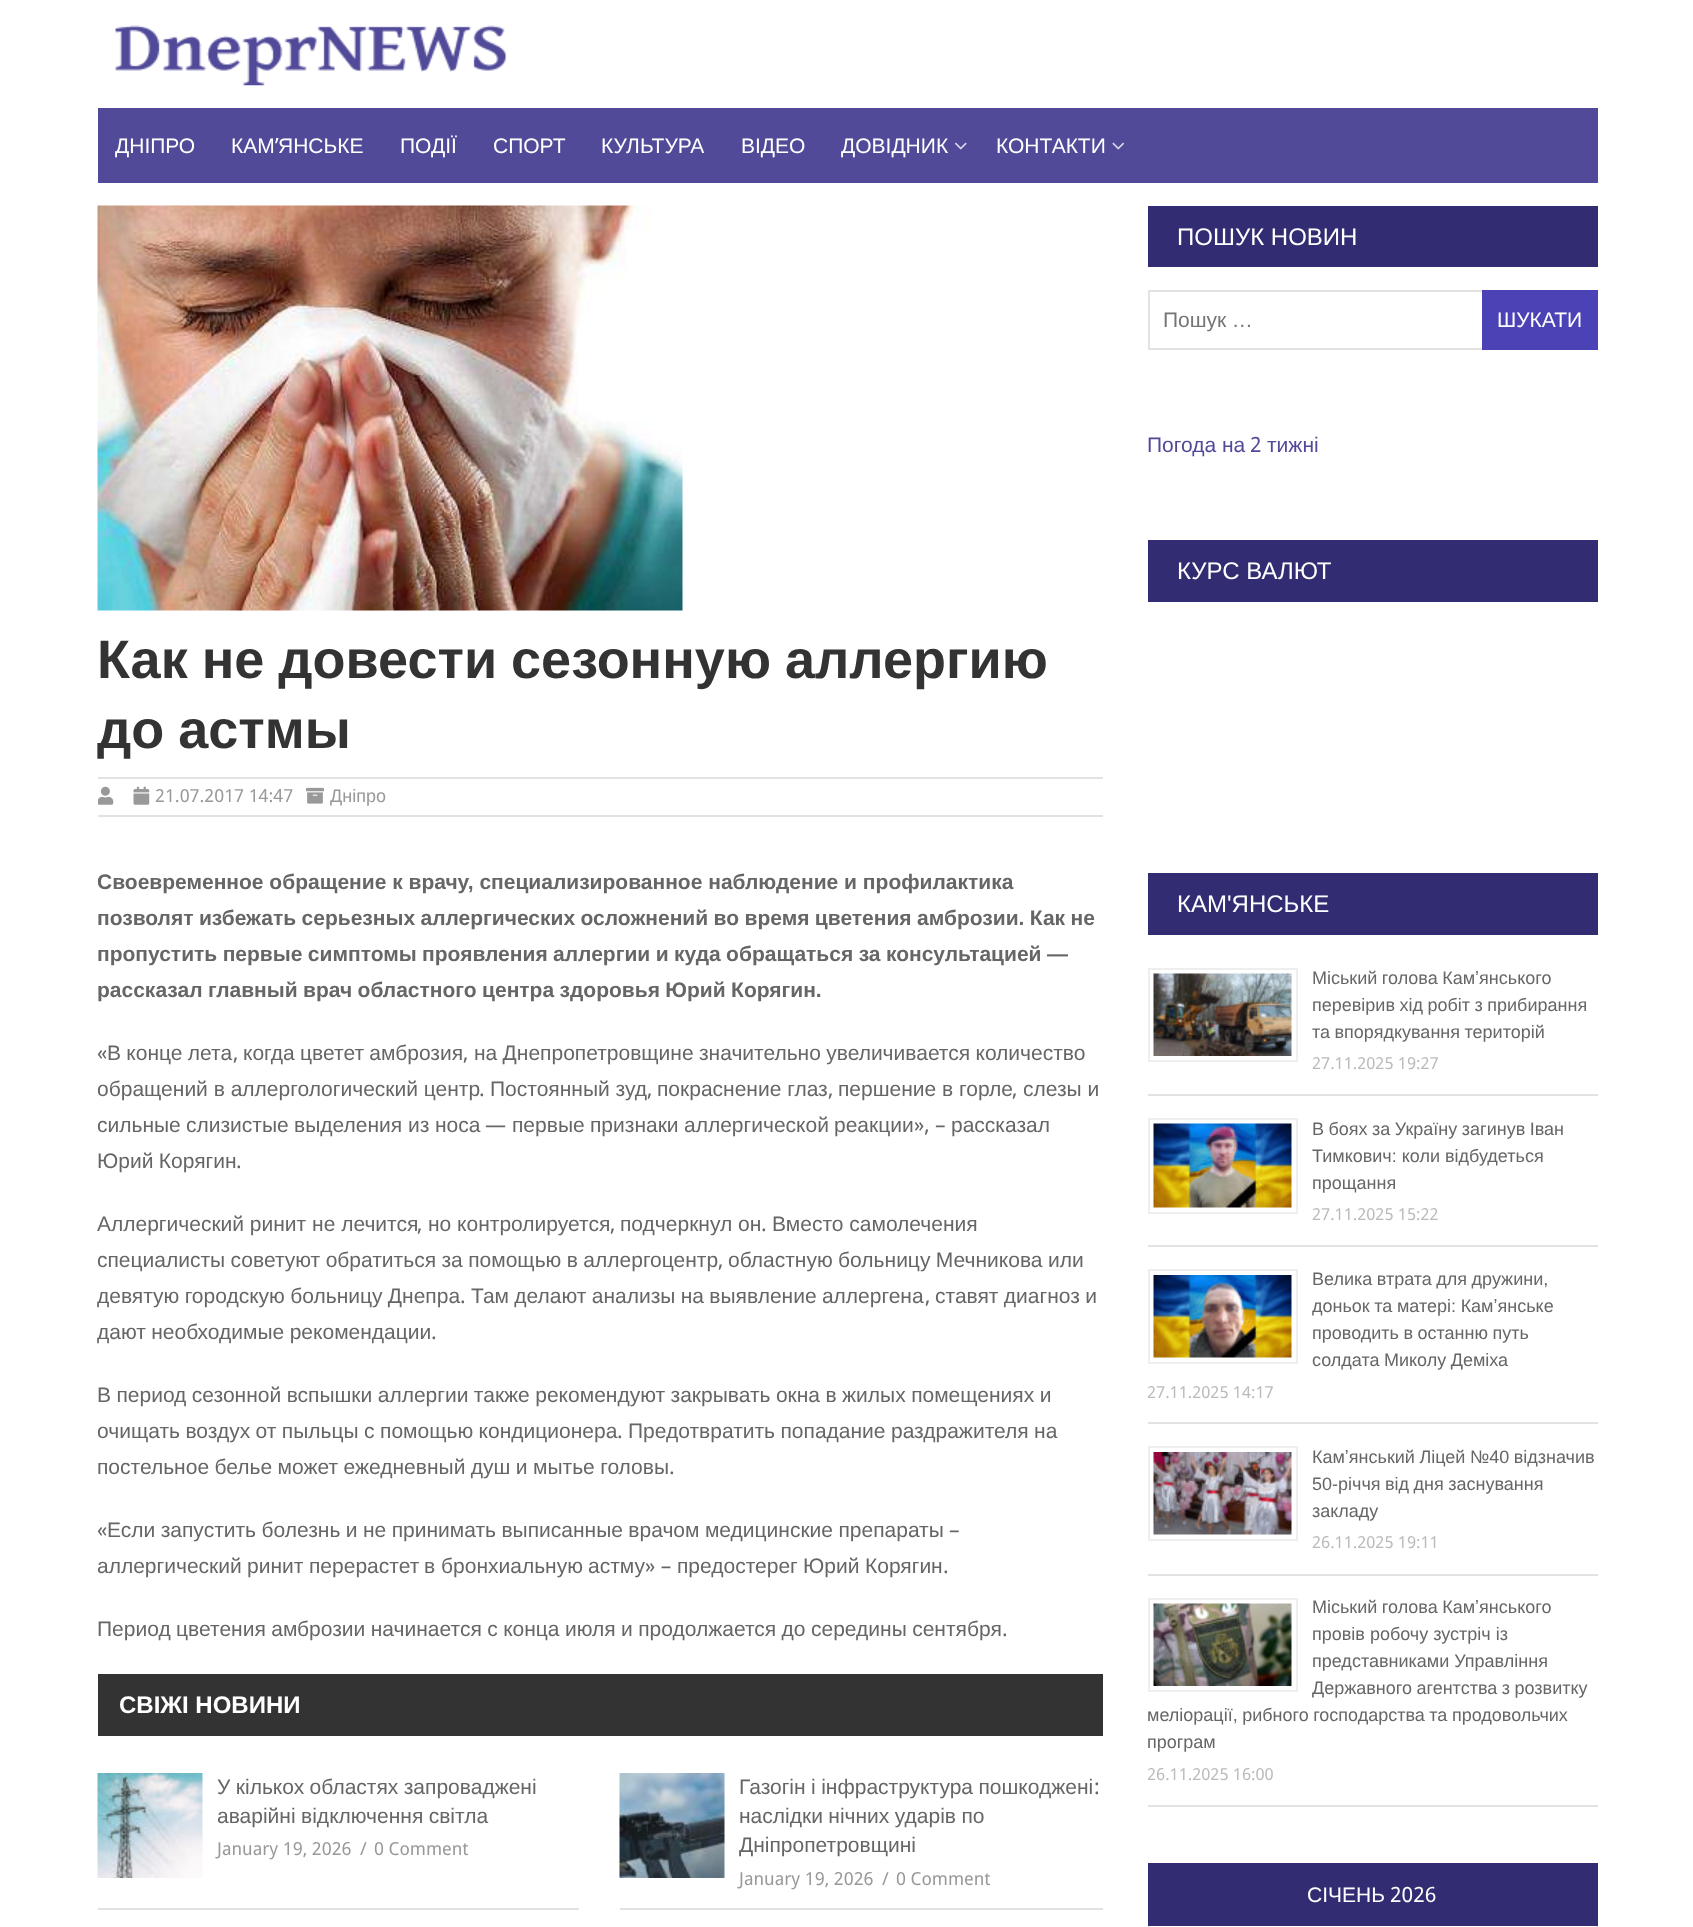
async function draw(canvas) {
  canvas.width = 1693
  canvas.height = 1927
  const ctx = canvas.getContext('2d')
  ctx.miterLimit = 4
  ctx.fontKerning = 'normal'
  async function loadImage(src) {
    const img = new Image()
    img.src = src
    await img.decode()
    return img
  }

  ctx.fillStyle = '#fff'
  ctx.fillRect(0, 0, 1693, 1927)
  ctx.drawImage(await loadImage('image0.png'), 115, 25, 392, 61)
  ctx.fillStyle = '#514a99'
  ctx.fillRect(98, 108, 1500, 75)
  ctx.font = '21px Liberation Sans'
  ctx.fillStyle = '#fff'
  ctx.fillText('ДНІПРО', 115, 153)
  ctx.fillText('КАМ', 231, 153)
  ctx.font = '21px Droid Sans'
  ctx.fillText('’', 275, 153)
  ctx.font = '21px Liberation Sans'
  ctx.fillText('ЯНСЬКЕ', 278, 153)
  ctx.fillText('ПОДІЇ', 400, 153)
  ctx.fillText('СПОРТ', 493, 153)
  ctx.fillText('КУЛЬТУРА', 601, 153)
  ctx.fillText('ВІДЕО', 741, 153)
  ctx.fillText('ДОВІДНИК', 841, 153)
  ctx.drawImage(await loadImage('image1.png'), 955, 142, 12, 8)
  ctx.fillText('КОНТАКТИ', 996, 153)
  ctx.drawImage(await loadImage('image2.png'), 1112, 142, 12, 8)
  ctx.drawImage(await loadImage('image3.png'), 97, 205, 586, 406)
  ctx.wordSpacing = '-1px'
  ctx.font = 'bold 54px Liberation Sans'
  ctx.fillStyle = '#333'
  ctx.fillText('Как не довести сезонную аллергию', 97, 678)
  ctx.fillText('до астмы', 97, 748)
  ctx.fillStyle = '#e2e2e2'
  ctx.fillRect(98, 777, 1005, 2)
  ctx.fillRect(98, 815, 1005, 2)
  ctx.drawImage(await loadImage('image4.png'), 98, 786, 16, 19)
  ctx.drawImage(await loadImage('image5.png'), 133, 786, 17, 19)
  ctx.wordSpacing = '0px'
  ctx.font = '18px Droid Sans'
  ctx.fillStyle = '#999'
  ctx.fillText('21.07.2017 14:47', 155, 802)
  ctx.drawImage(await loadImage('image6.png'), 306, 787, 18, 17)
  ctx.font = '18px Liberation Sans'
  ctx.fillText('Дніпро', 330, 802)
  ctx.font = 'bold 21px Liberation Sans'
  ctx.fillStyle = '#666'
  ctx.fillText('Своевременное обращение к врачу, специализированное наблюдение и профилактика', 97, 889)
  ctx.wordSpacing = '-0.4px'
  ctx.fillText('позволят избежать серьезных аллергических осложнений во время цветения амброзии. Как не', 97, 925)
  ctx.fillText('пропустить первые симптомы проявления аллергии и куда обращаться за консультацией —', 97, 961)
  ctx.fillText('рассказал главный врач областного центра здоровья Юрий Корягин.', 97, 997)
  ctx.wordSpacing = '0px'
  ctx.font = '21px Droid Sans'
  ctx.fillText('«', 97, 1060)
  ctx.wordSpacing = '-0.5px'
  ctx.font = '21px Liberation Sans'
  ctx.fillText('В конце лета', 107, 1060)
  ctx.fillText('когда цветет амброзия', 243, 1060)
  ctx.fillText('на Днепропетровщине значительно увеличивается количество', 474, 1060)
  ctx.wordSpacing = '0px'
  ctx.font = '21px Droid Sans'
  ctx.fillText(',', 233, 1060)
  ctx.fillText(',', 463, 1060)
  ctx.font = '21px Liberation Sans'
  ctx.fillText('обращений в аллергологический центр', 97, 1096)
  ctx.font = '21px Droid Sans'
  ctx.fillText('.', 479, 1096)
  ctx.font = '21px Liberation Sans'
  ctx.fillText('Постоянный зуд', 490, 1096)
  ctx.font = '21px Droid Sans'
  ctx.fillText(',', 647, 1096)
  ctx.font = '21px Liberation Sans'
  ctx.fillText('покраснение глаз', 657, 1096)
  ctx.font = '21px Droid Sans'
  ctx.fillText(',', 828, 1096)
  ctx.font = '21px Liberation Sans'
  ctx.fillText('першение в горле', 838, 1096)
  ctx.font = '21px Droid Sans'
  ctx.fillText(',', 1012, 1096)
  ctx.font = '21px Liberation Sans'
  ctx.fillText('слезы и', 1023, 1096)
  ctx.fillText('сильные', 97, 1132)
  ctx.fillText('слизистые', 186, 1132)
  ctx.fillText('выделения', 294, 1132)
  ctx.fillText('из', 408, 1132)
  ctx.fillText('носа', 435, 1132)
  ctx.font = '21px Droid Sans'
  ctx.fillText('—', 485, 1132)
  ctx.font = '21px Liberation Sans'
  ctx.fillText('первые', 512, 1132)
  ctx.fillText('признаки', 590, 1132)
  ctx.fillText('аллергической', 684, 1132)
  ctx.fillText('реакции', 834, 1132)
  ctx.font = '21px Droid Sans'
  ctx.fillText('», –', 914, 1132)
  ctx.font = '21px Liberation Sans'
  ctx.fillText('рассказал', 951, 1132)
  ctx.wordSpacing = '-0.4px'
  ctx.fillText('Юрий Корягин', 97, 1168)
  ctx.wordSpacing = '0px'
  ctx.font = '21px Droid Sans'
  ctx.fillText('.', 236, 1168)
  ctx.font = '21px Liberation Sans'
  ctx.fillText('Аллергический ринит не лечится', 97, 1231)
  ctx.font = '21px Droid Sans'
  ctx.fillText(',', 417, 1231)
  ctx.font = '21px Liberation Sans'
  ctx.fillText('но контролируется', 428, 1231)
  ctx.font = '21px Droid Sans'
  ctx.fillText(',', 610, 1231)
  ctx.font = '21px Liberation Sans'
  ctx.fillText('подчеркнул он', 620, 1231)
  ctx.font = '21px Droid Sans'
  ctx.fillText('.', 761, 1231)
  ctx.font = '21px Liberation Sans'
  ctx.fillText('Вместо самолечения', 772, 1231)
  ctx.wordSpacing = '-0.4px'
  ctx.fillText('специалисты советуют обратиться за помощью в аллергоцентр', 97, 1267)
  ctx.wordSpacing = '0px'
  ctx.font = '21px Droid Sans'
  ctx.fillText(',', 718, 1267)
  ctx.wordSpacing = '-0.4px'
  ctx.font = '21px Liberation Sans'
  ctx.fillText('областную больницу Мечникова или', 728, 1267)
  ctx.wordSpacing = '-0.5px'
  ctx.fillText('девятую городскую больницу Днепра', 97, 1303)
  ctx.wordSpacing = '0px'
  ctx.font = '21px Droid Sans'
  ctx.fillText('.', 460, 1303)
  ctx.wordSpacing = '-0.5px'
  ctx.font = '21px Liberation Sans'
  ctx.fillText('Там делают анализы на выявление аллергена', 471, 1303)
  ctx.wordSpacing = '0px'
  ctx.font = '21px Droid Sans'
  ctx.fillText(',', 925, 1303)
  ctx.wordSpacing = '-0.5px'
  ctx.font = '21px Liberation Sans'
  ctx.fillText('ставят диагноз и', 935, 1303)
  ctx.wordSpacing = '-0.4px'
  ctx.fillText('дают необходимые рекомендации', 97, 1339)
  ctx.wordSpacing = '0px'
  ctx.font = '21px Droid Sans'
  ctx.fillText('.', 431, 1339)
  ctx.wordSpacing = '-0.4px'
  ctx.font = '21px Liberation Sans'
  ctx.fillText('В период сезонной вспышки аллергии также рекомендуют закрывать окна в жилых помещениях и', 97, 1402)
  ctx.fillText('очищать воздух от пыльцы с помощью кондиционера', 97, 1438)
  ctx.wordSpacing = '0px'
  ctx.font = '21px Droid Sans'
  ctx.fillText('.', 617, 1438)
  ctx.wordSpacing = '-0.4px'
  ctx.font = '21px Liberation Sans'
  ctx.fillText('Предотвратить попадание раздражителя на', 628, 1438)
  ctx.fillText('постельное белье может ежедневный душ и мытье головы', 97, 1474)
  ctx.wordSpacing = '0px'
  ctx.font = '21px Droid Sans'
  ctx.fillText('.', 669, 1474)
  ctx.fillText('«', 97, 1537)
  ctx.wordSpacing = '-0.4px'
  ctx.font = '21px Liberation Sans'
  ctx.fillText('Если запустить болезнь и не принимать выписанные врачом медицинские препараты', 107, 1537)
  ctx.wordSpacing = '0px'
  ctx.font = '21px Droid Sans'
  ctx.fillText('–', 949, 1537)
  ctx.font = '21px Liberation Sans'
  ctx.fillText('аллергический', 97, 1573)
  ctx.fillText('ринит', 247, 1573)
  ctx.fillText('перерастет', 309, 1573)
  ctx.fillText('в', 424, 1573)
  ctx.fillText('бронхиальную', 441, 1573)
  ctx.fillText('астму', 588, 1573)
  ctx.font = '21px Droid Sans'
  ctx.fillText('» –', 645, 1573)
  ctx.font = '21px Liberation Sans'
  ctx.fillText('предостерег', 677, 1573)
  ctx.fillText('Юрий', 803, 1573)
  ctx.fillText('Корягин', 865, 1573)
  ctx.font = '21px Droid Sans'
  ctx.fillText('.', 943, 1573)
  ctx.wordSpacing = '-0.4px'
  ctx.font = '21px Liberation Sans'
  ctx.fillText('Период цветения амброзии начинается с конца июля и продолжается до середины сентября', 97, 1636)
  ctx.wordSpacing = '0px'
  ctx.font = '21px Droid Sans'
  ctx.fillText('.', 1002, 1636)
  ctx.fillStyle = '#333'
  ctx.fillRect(98, 1674, 1005, 62)
  ctx.font = 'bold 24px Liberation Sans'
  ctx.fillStyle = '#fff'
  ctx.fillText('СВІЖІ НОВИНИ', 119, 1713)
  ctx.fillStyle = '#e2e2e2'
  ctx.fillRect(98, 1908, 481, 2)
  ctx.drawImage(await loadImage('image7.png'), 97, 1773, 106, 105)
  ctx.wordSpacing = '-0.4px'
  ctx.font = '21px Liberation Sans'
  ctx.fillStyle = '#666'
  ctx.fillText('У кількох областях запроваджені', 217, 1794)
  ctx.fillText('аварійні відключення світла', 217, 1823)
  ctx.wordSpacing = '0px'
  ctx.font = '18px Droid Sans'
  ctx.fillStyle = '#999'
  ctx.fillText('January 19, 2026', 217, 1855)
  ctx.fillText('/', 360, 1855)
  ctx.fillText('0 Comment', 374, 1855)
  ctx.fillStyle = '#e2e2e2'
  ctx.fillRect(620, 1908, 483, 2)
  ctx.drawImage(await loadImage('image8.png'), 619, 1773, 106, 105)
  ctx.wordSpacing = '-0.4px'
  ctx.font = '21px Liberation Sans'
  ctx.fillStyle = '#666'
  ctx.fillText('Газогін і інфраструктура пошкоджені', 739, 1794)
  ctx.wordSpacing = '0px'
  ctx.font = '21px Droid Sans'
  ctx.fillText(':', 1094, 1794)
  ctx.wordSpacing = '-0.4px'
  ctx.font = '21px Liberation Sans'
  ctx.fillText('наслідки нічних ударів по', 739, 1823)
  ctx.wordSpacing = '0px'
  ctx.fillText('Дніпропетровщині', 739, 1852)
  ctx.font = '18px Droid Sans'
  ctx.fillStyle = '#999'
  ctx.fillText('January 19, 2026', 739, 1885)
  ctx.fillText('/', 882, 1885)
  ctx.fillText('0 Comment', 896, 1885)
  ctx.fillStyle = '#322c72'
  ctx.fillRect(1148, 206, 450, 61)
  ctx.font = '24px Liberation Sans'
  ctx.fillStyle = '#fff'
  ctx.fillText('ПОШУК НОВИН', 1177, 245)
  ctx.strokeStyle = '#e2e2e2'
  ctx.lineWidth = 2
  ctx.strokeRect(1149, 291, 448, 58)
  ctx.wordSpacing = '-0.4px'
  ctx.font = '21px Liberation Sans'
  ctx.fillStyle = '#757575'
  ctx.fillText('Пошук …', 1163, 327)
  ctx.fillStyle = '#4b42b6'
  ctx.fillRect(1482, 290, 116, 60)
  ctx.wordSpacing = '0px'
  ctx.fillStyle = '#fff'
  ctx.fillText('ШУКАТИ', 1497, 327)
  ctx.fillStyle = '#514a99'
  ctx.fillText('Погода на', 1147, 452)
  ctx.font = '21px Droid Sans'
  ctx.fillText('2', 1250, 452)
  ctx.font = '21px Liberation Sans'
  ctx.fillText('тижні', 1267, 452)
  ctx.fillStyle = '#322c72'
  ctx.fillRect(1148, 540, 450, 62)
  ctx.font = '24px Liberation Sans'
  ctx.fillStyle = '#fff'
  ctx.fillText('КУРС ВАЛЮТ', 1177, 579)
  ctx.fillStyle = '#322c72'
  ctx.fillRect(1148, 873, 450, 62)
  ctx.fillStyle = '#fff'
  ctx.fillText('КАМ\'ЯНСЬКЕ', 1177, 912)
  ctx.fillStyle = '#e2e2e2'
  ctx.fillRect(1148, 1094, 450, 2)
  ctx.strokeStyle = '#eee'
  ctx.strokeRect(1149, 969, 148, 92)
  ctx.drawImage(await loadImage('image9.png'), 1153, 973, 139, 83)
  ctx.wordSpacing = '-0.5px'
  ctx.font = '18px Liberation Sans'
  ctx.fillStyle = '#666'
  ctx.fillText('Міський голова Камʼянського', 1312, 984)
  ctx.fillText('перевірив хід робіт з прибирання', 1312, 1011)
  ctx.fillText('та впорядкування територій', 1312, 1038)
  ctx.wordSpacing = '0px'
  ctx.font = '16.5px Droid Sans'
  ctx.fillStyle = '#bbb'
  ctx.fillText('27.11.2025 19:27', 1312, 1069)
  ctx.fillStyle = '#e2e2e2'
  ctx.fillRect(1148, 1245, 450, 2)
  ctx.strokeRect(1149, 1119, 148, 94)
  ctx.drawImage(await loadImage('image10.png'), 1153, 1123, 139, 85)
  ctx.wordSpacing = '-0.5px'
  ctx.font = '18px Liberation Sans'
  ctx.fillStyle = '#666'
  ctx.fillText('В боях за Україну загинув Іван', 1312, 1135)
  ctx.wordSpacing = '0px'
  ctx.fillText('Тимкович: коли відбудеться', 1312, 1162)
  ctx.fillText('прощання', 1312, 1189)
  ctx.font = '16.5px Droid Sans'
  ctx.fillStyle = '#bbb'
  ctx.fillText('27.11.2025 15:22', 1312, 1220)
  ctx.fillStyle = '#e2e2e2'
  ctx.fillRect(1148, 1422, 450, 2)
  ctx.strokeRect(1149, 1270, 148, 93)
  ctx.drawImage(await loadImage('image11.png'), 1153, 1275, 139, 83)
  ctx.wordSpacing = '-0.5px'
  ctx.font = '18px Liberation Sans'
  ctx.fillStyle = '#666'
  ctx.fillText('Велика втрата для дружини,', 1312, 1285)
  ctx.wordSpacing = '-0.4px'
  ctx.fillText('доньок та матері: Камʼянське', 1312, 1312)
  ctx.wordSpacing = '-0.5px'
  ctx.fillText('проводить в останню путь', 1312, 1339)
  ctx.fillText('солдата Миколу Деміха', 1312, 1366)
  ctx.save()
  ctx.beginPath()
  ctx.rect(1148, 873, 450, 945)
  ctx.clip()
  ctx.wordSpacing = '0px'
  ctx.font = '16.5px Droid Sans'
  ctx.fillStyle = '#bbb'
  ctx.fillText('27.11.2025 14:17', 1147, 1398)
  ctx.restore()
  ctx.fillStyle = '#e2e2e2'
  ctx.fillRect(1148, 1574, 450, 2)
  ctx.strokeRect(1149, 1447, 148, 93)
  ctx.drawImage(await loadImage('image12.png'), 1153, 1452, 139, 83)
  ctx.fillStyle = '#666'
  ctx.fillText('Камʼянський Ліцей №40 відзначив', 1312, 1463)
  ctx.fillText('50-річчя від дня заснування', 1312, 1490)
  ctx.wordSpacing = '0px'
  ctx.fillText('закладу', 1312, 1517)
  ctx.font = '16.5px Droid Sans'
  ctx.fillStyle = '#bbb'
  ctx.fillText('26.11.2025 19:11', 1312, 1548)
  ctx.fillStyle = '#e2e2e2'
  ctx.fillRect(1148, 1805, 450, 2)
  ctx.strokeRect(1149, 1599, 148, 92)
  ctx.drawImage(await loadImage('image13.png'), 1153, 1603, 139, 83)
  ctx.wordSpacing = '-0.5px'
  ctx.font = '18px Liberation Sans'
  ctx.fillStyle = '#666'
  ctx.fillText('Міський голова Камʼянського', 1312, 1613)
  ctx.wordSpacing = '0px'
  ctx.fillText('провів робочу зустріч із', 1312, 1640)
  ctx.fillText('представниками Управління', 1312, 1667)
  ctx.wordSpacing = '-0.5px'
  ctx.fillText('Державного агентства з розвитку', 1312, 1694)
  ctx.fillText('меліорації, рибного господарства та продовольчих', 1147, 1721)
  ctx.wordSpacing = '0px'
  ctx.fillText('програм', 1147, 1748)
  ctx.save()
  ctx.beginPath()
  ctx.rect(1148, 873, 450, 945)
  ctx.clip()
  ctx.font = '16.5px Droid Sans'
  ctx.fillStyle = '#bbb'
  ctx.fillText('26.11.2025 16:00', 1147, 1780)
  ctx.restore()
  ctx.fillStyle = '#322c72'
  ctx.fillRect(1148, 1863, 450, 63)
  ctx.font = '21px Liberation Sans'
  ctx.fillStyle = '#fff'
  ctx.fillText('СІЧЕНЬ', 1307, 1902)
  ctx.font = '21px Droid Sans'
  ctx.fillText('2026', 1390, 1902)
  ctx.fillStyle = '#e9e9e9'
  ctx.fillRect(1148, 1926, 2, 1)
  ctx.fillRect(1596, 1926, 2, 1)
}

draw(document.querySelector('canvas'))
